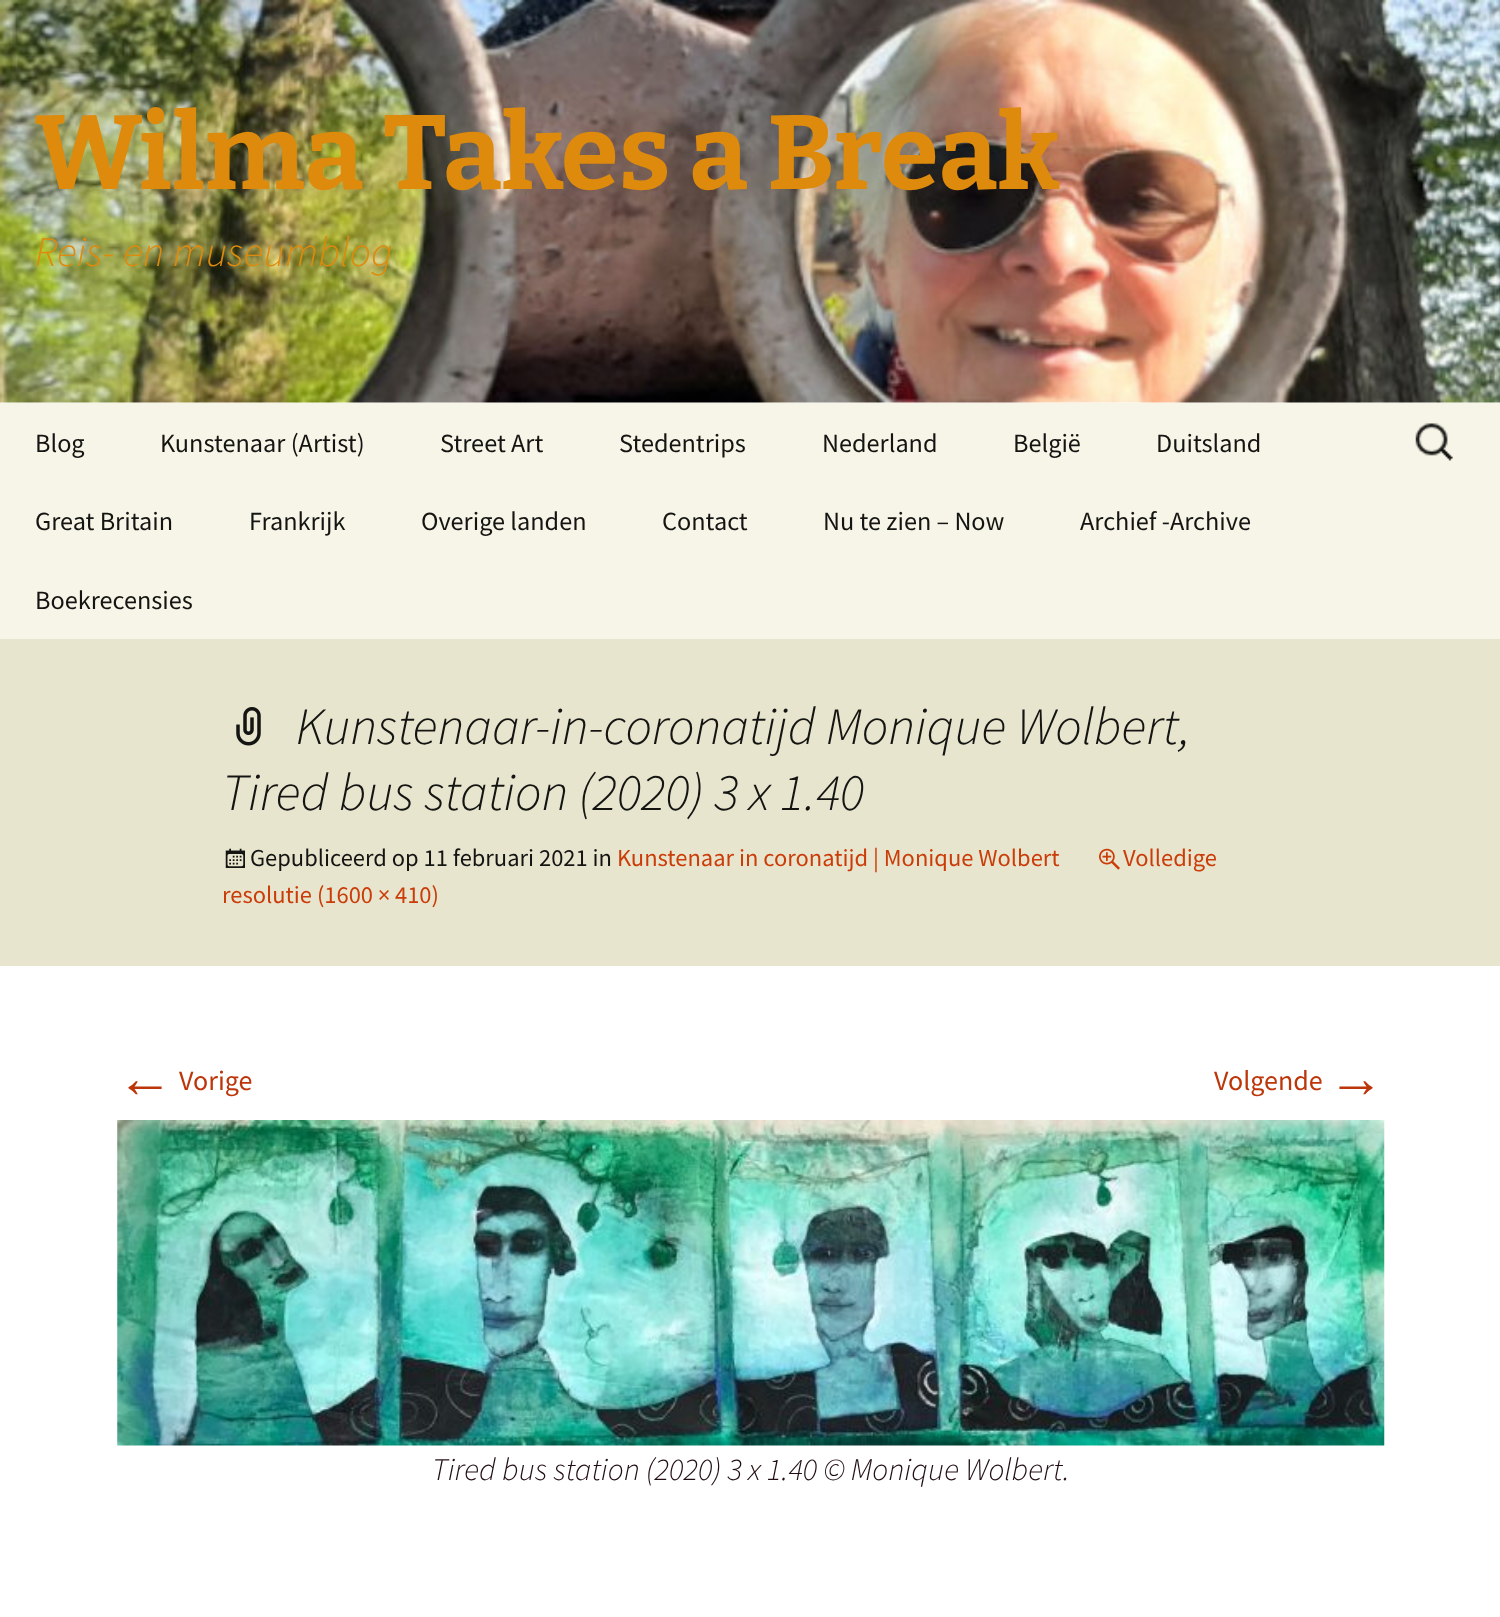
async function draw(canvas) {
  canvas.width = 1500
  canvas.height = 1617
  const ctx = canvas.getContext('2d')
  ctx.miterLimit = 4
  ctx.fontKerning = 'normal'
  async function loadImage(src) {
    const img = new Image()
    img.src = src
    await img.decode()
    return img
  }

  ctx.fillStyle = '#fff'
  ctx.fillRect(0, 0, 1500, 1617)
  ctx.drawImage(await loadImage('image0.png'), 0, 0, 1500, 403)
  ctx.font = '100 105px Bitter'
  ctx.fillStyle = '#dd8a0d'
  ctx.fillText('Wilma Takes a Break', 35, 189)
  ctx.font = 'italic 300 42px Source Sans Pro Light'
  ctx.fillText('Reis- en museumblog', 35, 266)
  ctx.fillStyle = '#f7f5e7'
  ctx.fillRect(0, 403, 1500, 236)
  ctx.font = '26.25px Source Sans Pro'
  ctx.fillStyle = '#141412'
  ctx.fillText('Blog', 35, 452)
  ctx.fillText('Kunstenaar (Artist)', 160, 452)
  ctx.fillText('Street Art', 440, 452)
  ctx.fillText('Stedentrips', 619, 452)
  ctx.fillText('Nederland', 822, 452)
  ctx.fillText('België', 1013, 452)
  ctx.fillText('Duitsland', 1156, 452)
  ctx.fillText('Great Britain', 35, 530)
  ctx.fillText('Frankrijk', 249, 530)
  ctx.fillText('Overige landen', 421, 530)
  ctx.fillText('Contact', 662, 530)
  ctx.fillText('Nu te zien – Now', 823, 530)
  ctx.fillText('Archief -Archive', 1080, 530)
  ctx.fillText('Boekrecensies', 35, 609)
  ctx.drawImage(await loadImage('image1.png'), 1415, 423, 38, 38)
  ctx.fillStyle = '#e8e5ce'
  ctx.fillRect(0, 639, 1500, 327)
  ctx.drawImage(await loadImage('image2.png'), 236, 707, 25, 39)
  ctx.font = 'italic 300 52.5px Source Sans Pro Light'
  ctx.fillStyle = '#141412'
  ctx.fillText('Kunstenaar-in-coronatijd Monique Wolbert,', 296, 744)
  ctx.fillText('Tired bus station (2020) 3 x 1.40', 222, 810)
  ctx.drawImage(await loadImage('image3.png'), 225, 848, 20, 20)
  ctx.font = '24.5px Source Sans Pro'
  ctx.fillText('Gepubliceerd op 11 februari 2021 in', 250, 866)
  ctx.fillStyle = '#ca3c08'
  ctx.fillText('Kunstenaar in coronatijd | Monique Wolbert', 617, 866)
  ctx.drawImage(await loadImage('image4.png'), 1099, 848, 21, 22)
  ctx.fillText('Volledige', 1123, 866)
  ctx.fillText('resolutie (1600 × 410)', 222, 903)
  ctx.font = '56px Liberation Sans'
  ctx.fillStyle = '#bc360a'
  ctx.fillText('←', 117, 1097)
  ctx.font = '28px Source Sans Pro'
  ctx.fillText('Vorige', 179, 1090)
  ctx.fillText('Volgende', 1214, 1090)
  ctx.font = '56px Liberation Sans'
  ctx.fillText('→', 1328, 1097)
  ctx.drawImage(await loadImage('image5.png'), 117, 1120, 1268, 326)
  ctx.font = 'italic 300 31.5px Source Sans Pro Light'
  ctx.fillStyle = '#220e10'
  ctx.fillText('Tired bus station (2020) 3 x 1.40 © Monique Wolbert.', 432, 1480)
}

draw(document.querySelector('canvas'))
